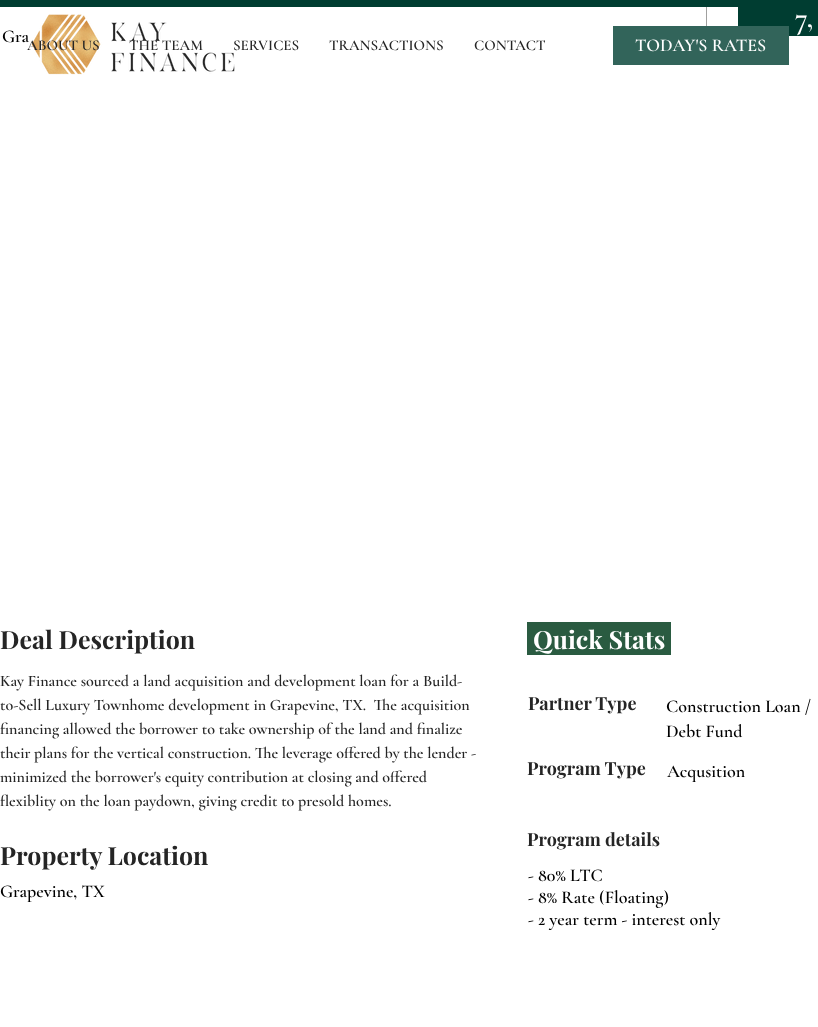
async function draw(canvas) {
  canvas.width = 818
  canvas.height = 1027
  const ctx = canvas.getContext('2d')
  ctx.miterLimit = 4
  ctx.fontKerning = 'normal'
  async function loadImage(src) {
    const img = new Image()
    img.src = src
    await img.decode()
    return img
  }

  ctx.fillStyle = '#fff'
  ctx.fillRect(0, 0, 818, 1027)
  ctx.fillStyle = '#a0a09f'
  ctx.fillRect(706, 0, 1, 26)
  ctx.fillStyle = '#003d31'
  ctx.fillRect(0, 0, 818, 7)
  ctx.font = '600 18px Cormorant Garamond'
  ctx.fillStyle = '#000'
  ctx.fillText('Gra', 2, 42)
  ctx.fillStyle = '#003d31'
  ctx.fillRect(738, 7, 80, 29)
  ctx.font = '600 30px Cormorant Garamond'
  ctx.fillStyle = '#fff'
  ctx.fillText('7,', 795, 27)
  ctx.font = 'bold 25px Playfair Display'
  ctx.fillStyle = '#252525'
  ctx.fillText('Deal Description', 0, 649)
  ctx.font = '600 16px Cormorant Garamond'
  ctx.fillText('Kay Finance sourced a land acquisition and development loan for a Build-', 0, 686)
  ctx.fillText('to-Sell Luxury Townhome development in Grapevine, TX.  The acquisition', 0, 710)
  ctx.fillText('financing allowed the borrower to take ownership of the land and finalize', 0, 734)
  ctx.fillText('their plans for the vertical construction. The leverage offered by the lender -', 0, 758)
  ctx.fillText('minimized the borrower\'s equity contribution at closing and offered', 0, 782)
  ctx.fillText('flexiblity on the loan paydown, giving credit to presold homes.', 0, 806)
  ctx.font = 'bold 25px Playfair Display'
  ctx.fillText('Property Location', 0, 865)
  ctx.font = '600 18px Cormorant Garamond'
  ctx.fillStyle = '#000'
  ctx.fillText('Grapevine, TX', 0, 897)
  ctx.fillStyle = '#2a5b41'
  ctx.fillRect(527, 622, 144, 33)
  ctx.font = 'bold 25px Playfair Display'
  ctx.fillStyle = '#fff'
  ctx.fillText('Quick Stats', 533, 649)
  ctx.font = 'bold 18px Playfair Display'
  ctx.fillStyle = '#252525'
  ctx.fillText('Partner Type', 528, 710)
  ctx.font = '600 18px Cormorant Garamond'
  ctx.fillStyle = '#000'
  ctx.fillText('Construction Loan /', 666, 712)
  ctx.fillText('Debt Fund', 666, 737)
  ctx.font = 'bold 18px Playfair Display'
  ctx.fillStyle = '#252525'
  ctx.fillText('Program Type', 527, 775)
  ctx.font = '600 18px Cormorant Garamond'
  ctx.fillStyle = '#000'
  ctx.fillText('Acqusition', 667, 777)
  ctx.font = 'bold 18px Playfair Display'
  ctx.fillStyle = '#252525'
  ctx.fillText('Program details', 527, 846)
  ctx.font = '600 18px Cormorant Garamond'
  ctx.fillStyle = '#000'
  ctx.fillText('- 80% LTC', 528, 881)
  ctx.fillText('- 8% Rate (Floating)', 528, 903)
  ctx.fillText('- 2 year term - interest only', 528, 925)
  ctx.drawImage(await loadImage('image0.png'), 31, 14, 204, 61)
  ctx.font = '600 15px Cormorant Garamond'
  ctx.fillStyle = '#252525'
  ctx.fillText('ABOUT US', 27, 50)
  ctx.fillText('THE TEAM', 129, 50)
  ctx.fillText('SERVICES', 233, 50)
  ctx.fillText('TRANSACTIONS', 329, 50)
  ctx.fillText('CONTACT', 474, 50)
  ctx.fillStyle = '#32645a'
  ctx.fillRect(613, 26, 176, 39)
  ctx.font = '600 18px Cormorant Garamond'
  ctx.fillStyle = '#fff'
  ctx.fillText('TODAY\'S RATES', 635, 51)
}

draw(document.querySelector('canvas'))
